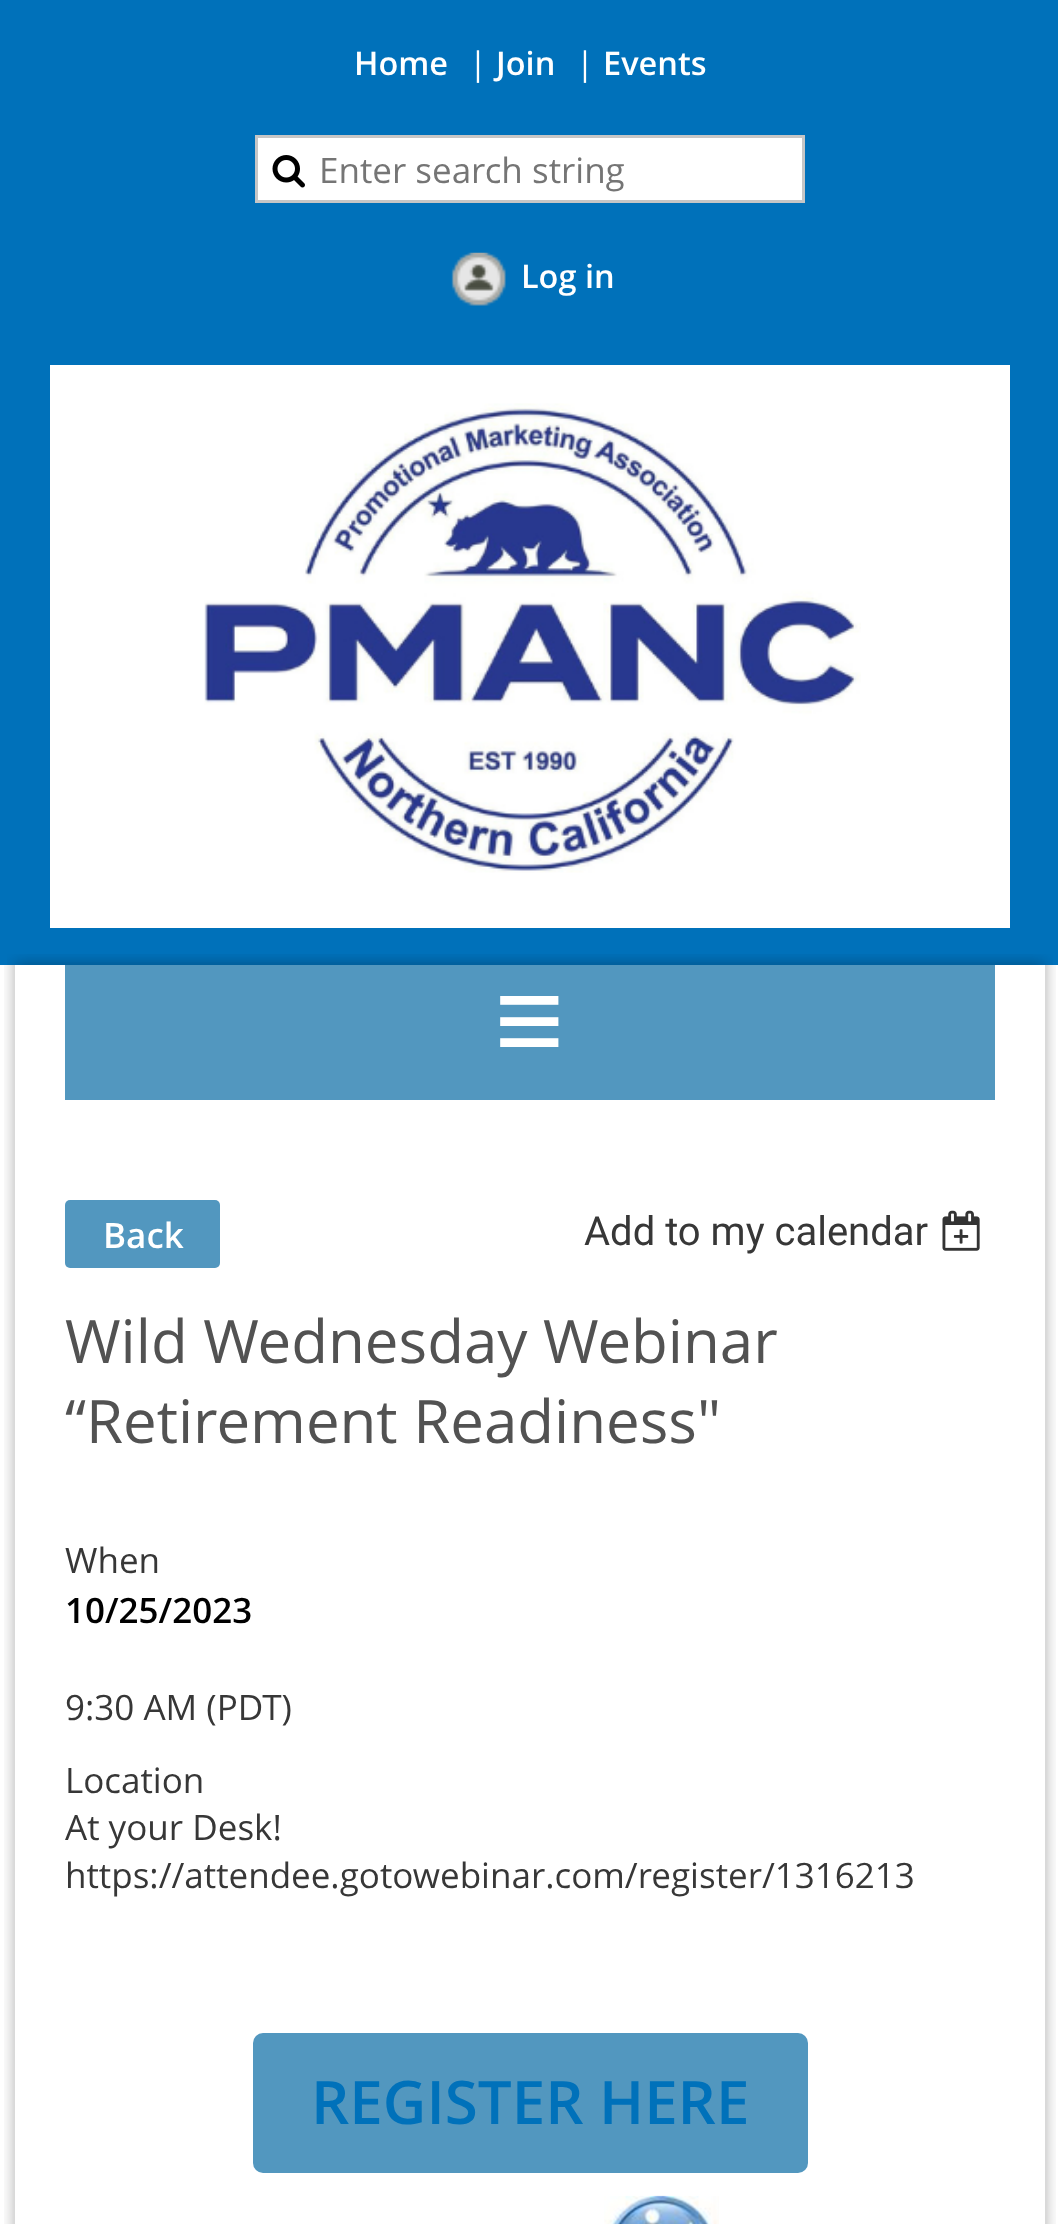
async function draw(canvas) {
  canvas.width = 1058
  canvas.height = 2224
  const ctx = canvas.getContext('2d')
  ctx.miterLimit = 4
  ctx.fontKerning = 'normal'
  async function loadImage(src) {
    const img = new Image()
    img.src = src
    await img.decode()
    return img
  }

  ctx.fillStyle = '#fff'
  ctx.fillRect(0, 0, 1058, 2224)
  ctx.fillStyle = '#0071ba'
  ctx.fillRect(0, 0, 1058, 965)
  ctx.font = '600 32.5px Open Sans'
  ctx.fillStyle = '#fff'
  ctx.fillText('Home', 354, 75)
  ctx.font = '32.5px Open Sans'
  ctx.fillText('|', 469, 75)
  ctx.font = '600 32.5px Open Sans'
  ctx.fillText('Join', 496, 75)
  ctx.font = '32.5px Open Sans'
  ctx.fillText('|', 576, 75)
  ctx.font = '600 32.5px Open Sans'
  ctx.fillText('Events', 603, 75)
  ctx.beginPath()
  ctx.rect(256.5, 136.5, 547, 65)
  ctx.fill()
  ctx.strokeStyle = '#c6c6c6'
  ctx.lineWidth = 3
  ctx.stroke()
  ctx.drawImage(await loadImage('image0.png'), 272, 155, 33, 33)
  ctx.font = '35px Open Sans'
  ctx.fillStyle = '#757575'
  ctx.fillText('Enter search string', 319, 183)
  ctx.drawImage(await loadImage('image1.png'), 451, 252, 55, 54)
  ctx.font = '600 32.5px Open Sans'
  ctx.fillStyle = '#fff'
  ctx.fillText('Log in', 521, 288)
  ctx.fillRect(50, 365, 960, 563)
  ctx.drawImage(await loadImage('image2.png'), 204, 403, 657, 470)
  ctx.drawImage(await loadImage('image3.png'), 7, 954, 1046, 11)
  ctx.drawImage(await loadImage('image4.png'), 27, 954, 1006, 11)
  ctx.drawImage(await loadImage('image5.png'), 4, 965, 1052, 1259)
  ctx.fillStyle = '#5297bf'
  ctx.fillRect(65, 965, 930, 135)
  ctx.font = 'bold 125px Liberation Serif'
  ctx.fillStyle = '#fff'
  ctx.fillText('≡', 494, 1063)
  ctx.fillStyle = '#5297bf'
  ctx.beginPath()
  ctx.roundRect(65, 1200, 155, 68, 5)
  ctx.fill()
  ctx.font = '600 35px Open Sans'
  ctx.fillStyle = '#fff'
  ctx.fillText('Back', 103, 1248)
  ctx.font = '40px Roboto'
  ctx.fillStyle = '#373737'
  ctx.fillText('Add to my calendar', 584, 1245)
  ctx.drawImage(await loadImage('image6.png'), 942, 1210, 38, 41)
  ctx.font = '60px Open Sans'
  ctx.fillStyle = '#525252'
  ctx.fillText('Wild Wednesday Webinar', 65, 1363)
  ctx.fillText('“Retirement Readiness"', 65, 1443)
  ctx.font = '35px Open Sans'
  ctx.fillStyle = '#373737'
  ctx.fillText('When', 65, 1573)
  ctx.font = '600 35px Open Sans'
  ctx.fillStyle = '#000'
  ctx.fillText('10/25/2023', 65, 1623)
  ctx.font = '35px Open Sans'
  ctx.fillStyle = '#373737'
  ctx.fillText('9:30 AM (PDT)', 65, 1720)
  ctx.fillText('Location', 65, 1793)
  ctx.fillText('At your Desk!', 65, 1840)
  ctx.fillText('https://attendee.gotowebinar.com/register/1316213', 65, 1888)
  ctx.fillStyle = '#5297bf'
  ctx.beginPath()
  ctx.roundRect(253, 2033, 555, 140, 10)
  ctx.fill()
  ctx.font = '600 60px Open Sans'
  ctx.fillStyle = '#0071ba'
  ctx.fillText('REGISTER HERE', 311, 2124)
  ctx.drawImage(await loadImage('image7.png'), 604, 2195, 115, 29)
}

draw(document.querySelector('canvas'))
